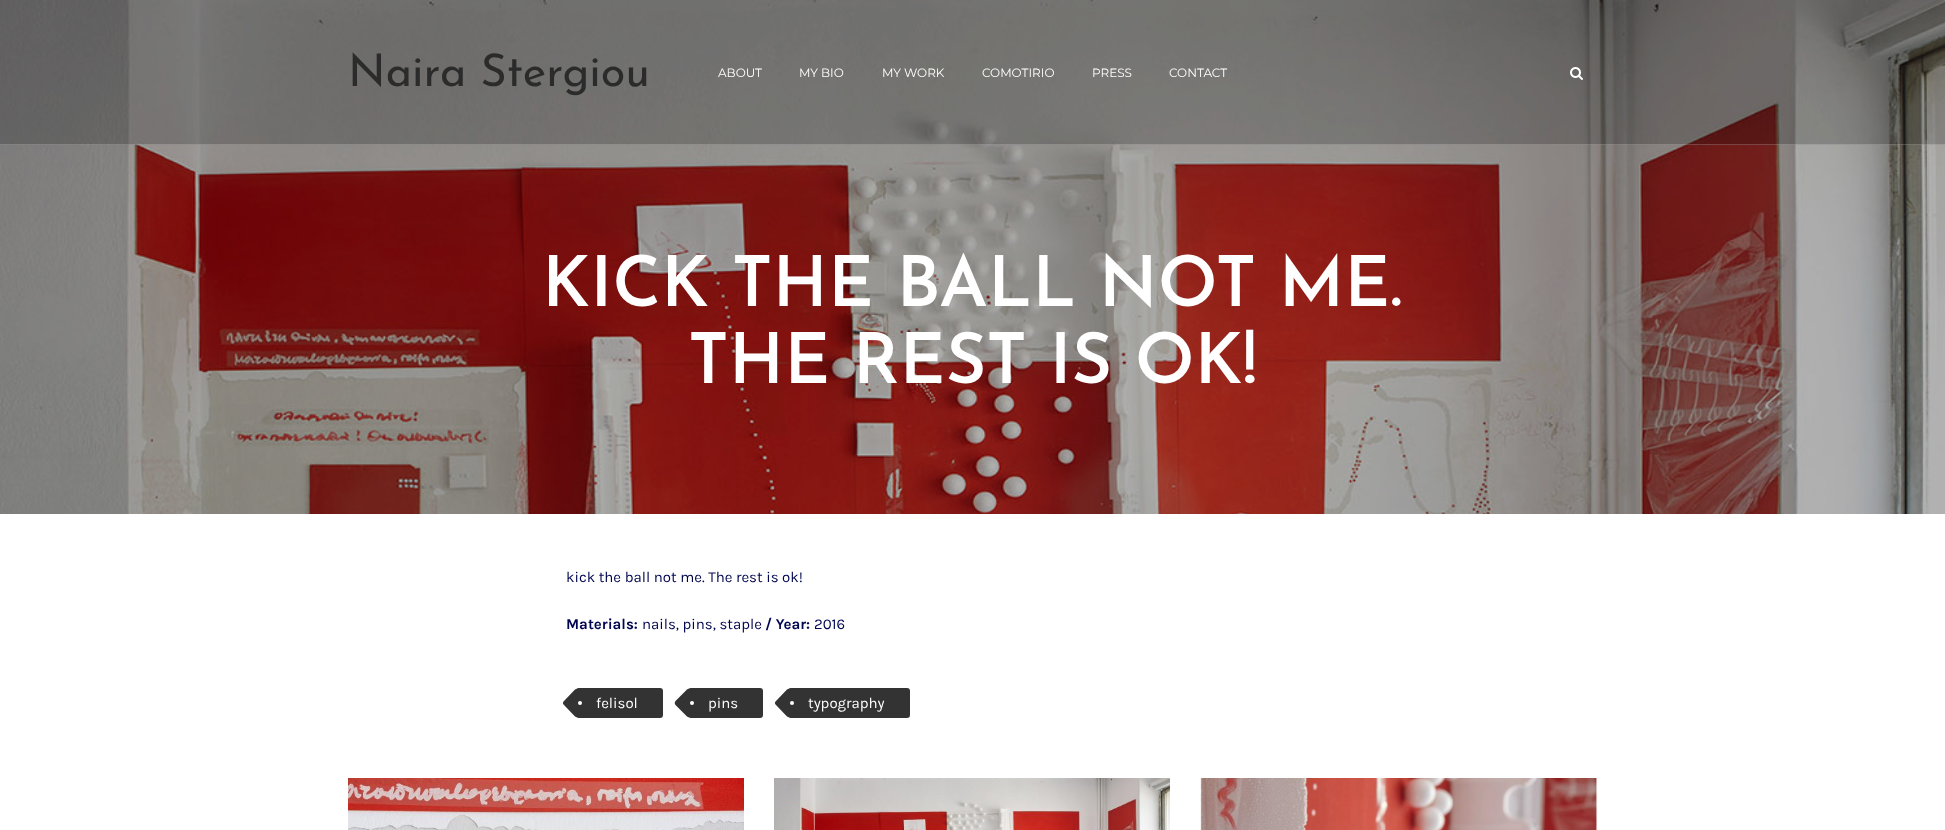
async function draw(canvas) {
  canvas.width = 1945
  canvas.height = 830
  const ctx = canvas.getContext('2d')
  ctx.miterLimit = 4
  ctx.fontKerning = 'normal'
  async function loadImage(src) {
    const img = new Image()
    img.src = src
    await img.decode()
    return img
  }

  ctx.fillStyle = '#fff'
  ctx.fillRect(0, 0, 1945, 830)
  ctx.drawImage(await loadImage('image1.png'), 0, 0, 1945, 514)
  ctx.fillStyle = '#00000033'
  ctx.fillRect(0, 0, 1945, 145)
  ctx.fillStyle = '#ffffff33'
  ctx.fillRect(0, 144, 1945, 1)
  ctx.font = '45px Josefin Sans'
  ctx.fillStyle = '#2b2b2b'
  ctx.fillText('Naira Stergiou', 348, 86)
  ctx.font = '12px Montserrat'
  ctx.fillStyle = '#fff'
  ctx.fillText('ABOUT', 718, 77)
  ctx.fillText('MY BIO', 799, 77)
  ctx.fillText('MY WORK', 882, 77)
  ctx.fillText('COMOTIRIO', 982, 77)
  ctx.fillText('PRESS', 1092, 77)
  ctx.fillText('CONTACT', 1169, 77)
  ctx.drawImage(await loadImage('image0.png'), 1570, 67, 13, 13)
  ctx.font = '600 70px Josefin Sans'
  ctx.fillText('KICK THE BALL NOT ME.', 542, 306)
  ctx.fillText('THE REST IS OK!', 688, 383)
  ctx.font = '15px Karla'
  ctx.fillStyle = '#00054f'
  ctx.fillText('kick the ball not me. The rest is ok!', 566, 582)
  ctx.font = 'bold 15px Karla'
  ctx.fillText('Materials:', 566, 629)
  ctx.font = '15px Karla'
  ctx.fillText('nails, pins, staple', 642, 629)
  ctx.font = 'bold 15px Karla'
  ctx.fillText('/ Year:', 765, 629)
  ctx.font = '15px Karla'
  ctx.fillText('2016', 814, 629)
  ctx.fillStyle = '#333'
  ctx.beginPath()
  ctx.roundRect(576, 688, 87, 30, 3)
  ctx.fill()
  ctx.beginPath()
  ctx.moveTo(579.5, 689.5)
  ctx.lineTo(590.5, 701)
  ctx.bezierCurveTo(592, 702, 592, 704, 590.5, 705)
  ctx.lineTo(579.5, 716.5)
  ctx.bezierCurveTo(578, 717.5, 576.5, 717.5, 575, 716.5)
  ctx.lineTo(564, 705)
  ctx.bezierCurveTo(562.5, 704, 562.5, 702, 564, 701)
  ctx.lineTo(575, 689.5)
  ctx.bezierCurveTo(576.5, 688.5, 578, 688.5, 579.5, 689.5)
  ctx.closePath()
  ctx.fill()
  ctx.fillStyle = '#fff'
  ctx.fillText('felisol', 596, 708)
  ctx.beginPath()
  ctx.arc(580, 703, 2, 0, 2 * Math.PI)
  ctx.fill()
  ctx.fillStyle = '#333'
  ctx.beginPath()
  ctx.roundRect(688, 688, 75, 30, 3)
  ctx.fill()
  ctx.beginPath()
  ctx.moveTo(691, 689.5)
  ctx.lineTo(702.5, 701)
  ctx.bezierCurveTo(703.5, 702, 703.5, 704, 702.5, 705)
  ctx.lineTo(691, 716.5)
  ctx.bezierCurveTo(690, 717.5, 688, 717.5, 687, 716.5)
  ctx.lineTo(675.5, 705)
  ctx.bezierCurveTo(674.5, 704, 674.5, 702, 675.5, 701)
  ctx.lineTo(687, 689.5)
  ctx.bezierCurveTo(688, 688.5, 690, 688.5, 691, 689.5)
  ctx.closePath()
  ctx.fill()
  ctx.fillStyle = '#fff'
  ctx.fillText('pins', 708, 708)
  ctx.beginPath()
  ctx.arc(692, 703, 2, 0, 2 * Math.PI)
  ctx.fill()
  ctx.fillStyle = '#333'
  ctx.beginPath()
  ctx.roundRect(788, 688, 122, 30, 3)
  ctx.fill()
  ctx.beginPath()
  ctx.moveTo(791.5, 689.5)
  ctx.lineTo(802.5, 701)
  ctx.bezierCurveTo(804, 702, 804, 704, 802.5, 705)
  ctx.lineTo(791.5, 716.5)
  ctx.bezierCurveTo(790, 717.5, 788.5, 717.5, 787, 716.5)
  ctx.lineTo(776, 705)
  ctx.bezierCurveTo(774.5, 704, 774.5, 702, 776, 701)
  ctx.lineTo(787, 689.5)
  ctx.bezierCurveTo(788.5, 688.5, 790, 688.5, 791.5, 689.5)
  ctx.closePath()
  ctx.fill()
  ctx.fillStyle = '#fff'
  ctx.fillText('typography', 808, 708)
  ctx.beginPath()
  ctx.arc(792, 703, 2, 0, 2 * Math.PI)
  ctx.fill()
  ctx.drawImage(await loadImage('image2.png'), 348, 778, 396, 52)
  ctx.drawImage(await loadImage('image3.png'), 774, 778, 396, 52)
  ctx.drawImage(await loadImage('image4.png'), 1200, 778, 398, 52)
}

draw(document.querySelector('canvas'))
